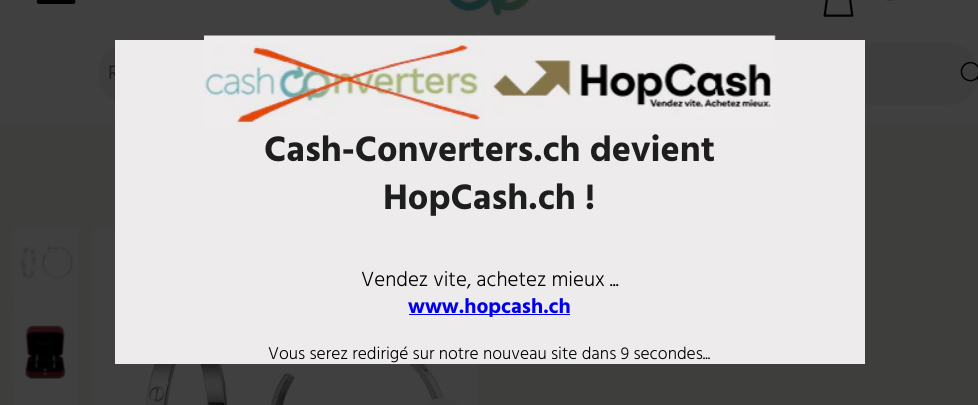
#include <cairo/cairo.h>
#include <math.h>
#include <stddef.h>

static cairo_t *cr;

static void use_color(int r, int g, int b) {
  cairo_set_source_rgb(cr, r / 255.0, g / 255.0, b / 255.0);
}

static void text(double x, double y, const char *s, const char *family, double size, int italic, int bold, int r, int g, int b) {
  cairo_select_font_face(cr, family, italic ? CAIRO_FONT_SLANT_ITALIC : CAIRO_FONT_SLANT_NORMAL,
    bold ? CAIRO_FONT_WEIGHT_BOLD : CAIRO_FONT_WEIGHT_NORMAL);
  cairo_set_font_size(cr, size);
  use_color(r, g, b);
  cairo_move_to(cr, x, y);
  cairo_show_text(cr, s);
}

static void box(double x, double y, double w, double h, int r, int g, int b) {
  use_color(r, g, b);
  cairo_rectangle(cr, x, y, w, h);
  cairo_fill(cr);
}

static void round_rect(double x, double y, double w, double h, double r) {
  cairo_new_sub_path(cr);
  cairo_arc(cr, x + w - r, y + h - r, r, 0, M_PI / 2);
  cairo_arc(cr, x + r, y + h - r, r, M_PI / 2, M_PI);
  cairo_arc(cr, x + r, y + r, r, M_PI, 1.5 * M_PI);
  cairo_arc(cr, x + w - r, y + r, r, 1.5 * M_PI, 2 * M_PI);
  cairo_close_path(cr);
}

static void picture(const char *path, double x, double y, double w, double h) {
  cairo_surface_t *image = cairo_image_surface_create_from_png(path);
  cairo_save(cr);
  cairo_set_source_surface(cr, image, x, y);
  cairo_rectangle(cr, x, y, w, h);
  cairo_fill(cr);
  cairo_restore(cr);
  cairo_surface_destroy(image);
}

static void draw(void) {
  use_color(62, 62, 61);
  cairo_paint(cr);
  box(0, 0, 978, 123, 64, 64, 64);
  picture("img_01.png", 36, 0, 40, 4);
  picture("img_02.png", 448, 0, 82, 17);
  picture("img_03.png", 823, 0, 31, 17);
  picture("img_04.png", 886, 0, 8, 1);
  use_color(61, 61, 61);
  round_rect(98, 43, 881, 62, 31);
  cairo_fill(cr);
  picture("img_05.png", 960, 61, 18, 21);
  box(13, 229, 65, 176, 64, 64, 64);
  picture("img_06.png", 12, 229, 62, 65);
  picture("img_07.png", 12, 319, 54, 65);
  picture("img_08.png", 92, 229, 385, 176);
  use_color(62, 62, 63);
  round_rect(418, 398, 47, 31, 23.5);
  cairo_fill(cr);
  text(108, 79, "R", "Hind", 20, 0, 0, 30, 30, 30);
  box(115, 40, 750, 324, 237, 235, 235);
  picture("img_09.png", 204, 35, 572, 91);
  text(264, 161, "Cash-Converters.ch devient", "Hind", 36.25, 0, 1, 30, 30, 30);
  text(383, 209, "HopCash.ch !", "Hind", 36.25, 0, 1, 30, 30, 30);
  text(361, 286, "Vendez vite, achetez mieux ...", "Hind Light", 21, 0, 0, 0, 0, 0);
  box(409, 314, 161, 1, 0, 0, 238);
  text(408, 313, "www.hopcash.ch", "Hind", 21, 0, 1, 0, 0, 238);
  text(268, 359, "Vous serez redirigé sur notre nouveau site dans 9 secondes...", "Hind Light", 17.5, 0, 0, 0, 0, 0);
}

int main(void) {
  cairo_surface_t *surface = cairo_image_surface_create(CAIRO_FORMAT_RGB24, 978, 405);
  cr = cairo_create(surface);
  cairo_font_options_t *options = cairo_font_options_create();
  cairo_font_options_set_hint_metrics(options, CAIRO_HINT_METRICS_OFF);
  cairo_font_options_set_hint_style(options, CAIRO_HINT_STYLE_NONE);
  cairo_set_font_options(cr, options);
  cairo_set_miter_limit(cr, 4);
  draw();
  cairo_surface_write_to_png(surface, "out.png");
  cairo_font_options_destroy(options);
  cairo_destroy(cr);
  cairo_surface_destroy(surface);
  return 0;
}
